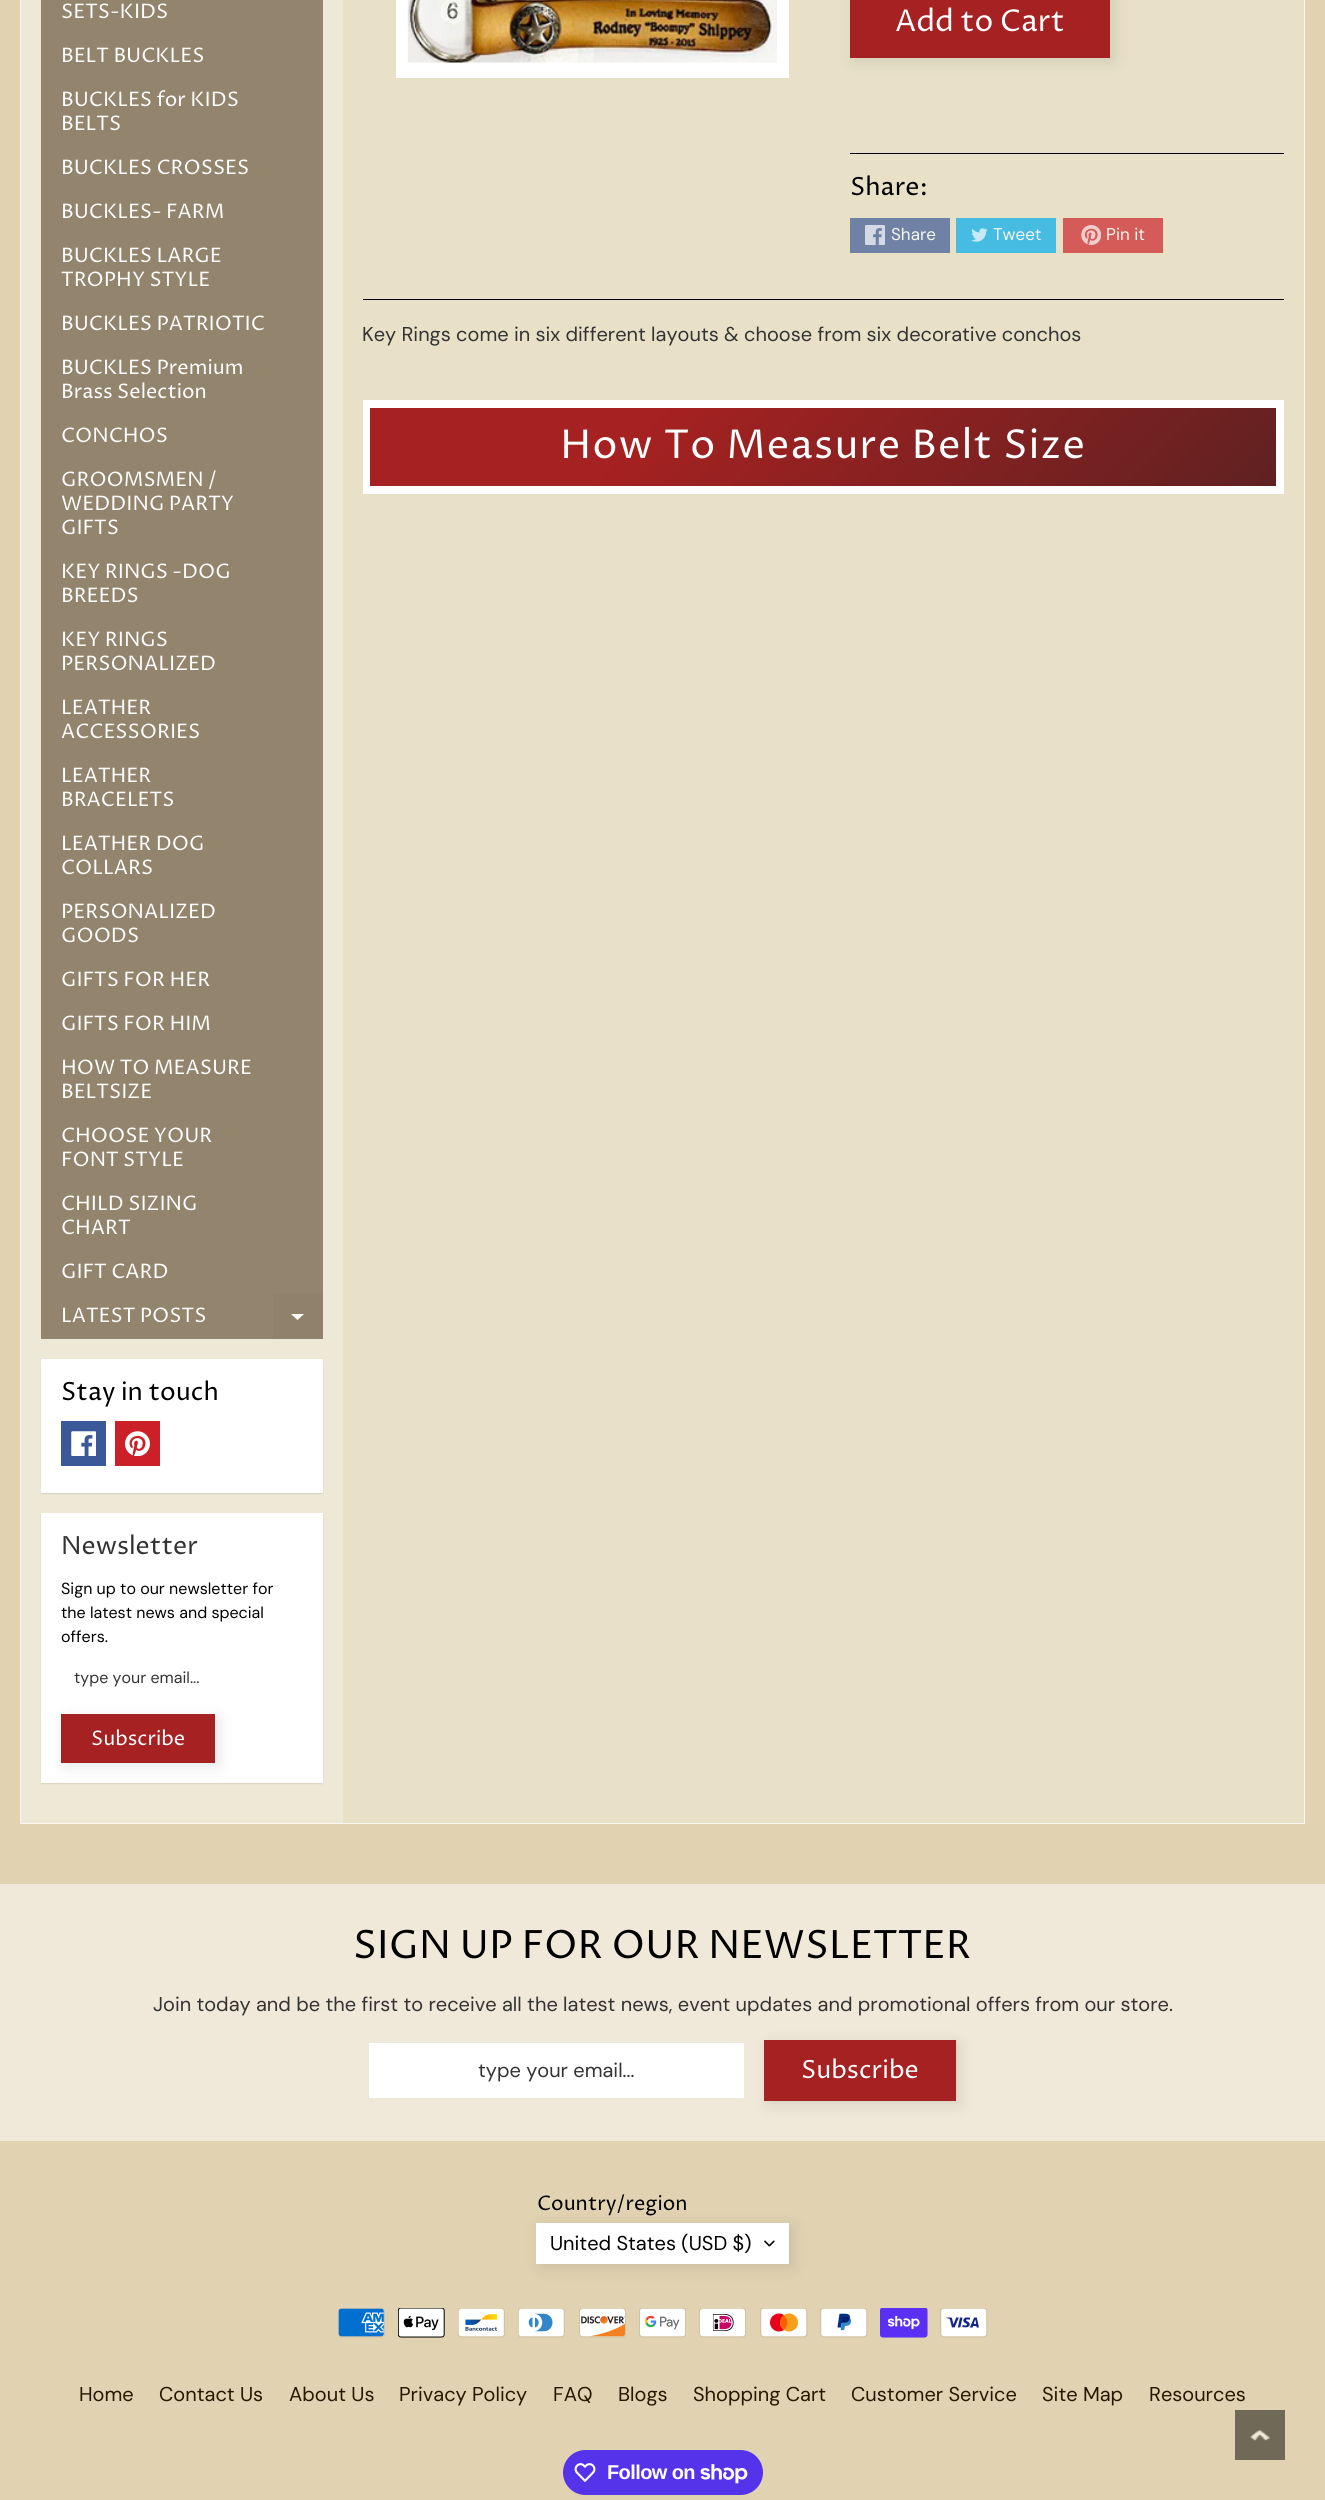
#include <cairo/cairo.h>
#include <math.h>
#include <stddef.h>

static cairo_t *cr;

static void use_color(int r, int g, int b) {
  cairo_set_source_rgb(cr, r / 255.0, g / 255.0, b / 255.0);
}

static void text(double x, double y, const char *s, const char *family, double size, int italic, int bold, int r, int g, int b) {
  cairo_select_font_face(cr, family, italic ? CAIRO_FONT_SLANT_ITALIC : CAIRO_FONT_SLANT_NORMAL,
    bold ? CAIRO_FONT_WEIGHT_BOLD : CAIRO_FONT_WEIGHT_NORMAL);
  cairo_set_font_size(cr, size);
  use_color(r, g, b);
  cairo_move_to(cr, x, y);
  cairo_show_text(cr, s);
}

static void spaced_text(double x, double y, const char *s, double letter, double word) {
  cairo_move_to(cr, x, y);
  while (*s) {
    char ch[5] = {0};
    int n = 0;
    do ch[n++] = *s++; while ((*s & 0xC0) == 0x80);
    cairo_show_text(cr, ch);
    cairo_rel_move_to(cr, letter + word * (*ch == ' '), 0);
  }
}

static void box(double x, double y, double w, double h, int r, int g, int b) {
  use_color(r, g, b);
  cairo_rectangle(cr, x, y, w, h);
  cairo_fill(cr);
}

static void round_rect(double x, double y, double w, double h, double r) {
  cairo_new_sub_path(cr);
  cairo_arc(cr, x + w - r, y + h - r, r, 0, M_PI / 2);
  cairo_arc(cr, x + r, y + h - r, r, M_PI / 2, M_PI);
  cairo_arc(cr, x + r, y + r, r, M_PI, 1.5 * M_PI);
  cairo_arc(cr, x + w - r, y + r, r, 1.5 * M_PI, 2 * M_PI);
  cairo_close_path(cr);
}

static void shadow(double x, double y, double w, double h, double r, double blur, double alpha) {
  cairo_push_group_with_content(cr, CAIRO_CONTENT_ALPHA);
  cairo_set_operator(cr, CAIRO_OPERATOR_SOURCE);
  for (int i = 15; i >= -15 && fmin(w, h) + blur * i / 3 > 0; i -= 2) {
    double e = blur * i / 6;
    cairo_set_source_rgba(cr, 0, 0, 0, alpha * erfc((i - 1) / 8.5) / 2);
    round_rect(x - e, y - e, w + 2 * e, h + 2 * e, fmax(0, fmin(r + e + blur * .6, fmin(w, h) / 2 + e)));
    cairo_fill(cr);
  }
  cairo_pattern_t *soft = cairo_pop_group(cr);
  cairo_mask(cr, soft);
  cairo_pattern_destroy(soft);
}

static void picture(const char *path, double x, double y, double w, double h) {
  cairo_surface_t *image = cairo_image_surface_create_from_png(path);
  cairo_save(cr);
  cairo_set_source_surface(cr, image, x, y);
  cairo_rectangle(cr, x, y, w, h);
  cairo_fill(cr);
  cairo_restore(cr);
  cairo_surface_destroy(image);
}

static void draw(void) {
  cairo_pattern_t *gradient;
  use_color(225, 210, 177);
  cairo_paint(cr);
  box(343, 0, 961, 1823, 232, 225, 200);
  cairo_rectangle(cr, 20.5, -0.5, 1284, 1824);
  use_color(248, 246, 239);
  cairo_set_line_width(cr, 1);
  cairo_stroke(cr);
  box(21, 0, 322, 1823, 238, 232, 214);
  box(41, 0, 282, 1294, 147, 132, 109);
  box(41, 1294, 232, 45, 147, 132, 109);
  box(273, 1294, 50, 45, 143, 129, 106);
  use_color(255, 255, 255);
  cairo_new_path(cr);
  cairo_move_to(cr, 291, 1314);
  cairo_line_to(cr, 304, 1314);
  cairo_line_to(cr, 297.5, 1320);
  cairo_close_path(cr);
  cairo_fill(cr);
  use_color(0, 0, 0);
  shadow(41, 1360, 282, 134, 0, 0.5, 0.1);
  box(41, 1359, 282, 134, 255, 255, 255);
  box(61, 1421, 45, 45, 59, 89, 152);
  picture("img_01.png", 71, 1431, 25, 25);
  box(115, 1421, 45, 45, 203, 32, 39);
  picture("img_02.png", 125, 1431, 25, 25);
  use_color(0, 0, 0);
  shadow(41, 1514, 282, 270, 0, 0.5, 0.1);
  box(41, 1513, 282, 270, 255, 255, 255);
  use_color(0, 0, 0);
  shadow(65, 1718, 154, 48, 0, 7.5, 0.1);
  box(61, 1714, 154, 49, 166, 33, 33);
  box(396, 0, 393, 78, 255, 255, 255);
  picture("img_03.png", 407, 0, 370, 63);
  use_color(0, 0, 0);
  shadow(854, -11, 260, 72, 0, 7.5, 0.1);
  box(850, 0, 260, 58, 166, 33, 33);
  box(850, 153, 434, 1, 0, 0, 0);
  box(850, 218, 100, 35, 111, 130, 166);
  picture("img_04.png", 865, 225, 20, 20);
  box(956, 218, 100, 35, 70, 188, 226);
  picture("img_05.png", 971, 228, 17, 14);
  box(1063, 218, 100, 35, 212, 91, 87);
  picture("img_06.png", 1081, 225, 20, 20);
  box(363, 299, 921, 1, 0, 0, 0);
  box(363, 400, 921, 94, 255, 255, 255);
  gradient = cairo_pattern_create_linear(577, 201, 1069, 693);
  cairo_pattern_add_color_stop_rgba(gradient, 0.3, 0.651, 0.129, 0.129, 1);
  cairo_pattern_add_color_stop_rgba(gradient, 1, 0.376, 0.129, 0.129, 1);
  cairo_set_source(cr, gradient);
  cairo_pattern_destroy(gradient);
  cairo_rectangle(cr, 370, 408, 906, 78);
  cairo_fill(cr);
  box(0, 1884, 1325, 257, 240, 232, 216);
  box(369, 2043, 375, 55, 255, 255, 255);
  use_color(0, 0, 0);
  shadow(768, 2044, 192, 61, 0, 7.5, 0.1);
  box(764, 2040, 192, 61, 166, 33, 33);
  use_color(0, 0, 0);
  shadow(540, 2226, 253, 42, 0, 7.5, 0.1);
  box(536, 2223, 253, 41, 255, 255, 255);
  picture("img_07.png", 764, 2240, 11, 7);
  picture("img_08.png", 338, 2308, 47, 30);
  picture("img_09.png", 398, 2308, 47, 30);
  picture("img_10.png", 458, 2308, 47, 30);
  picture("img_11.png", 518, 2308, 47, 30);
  picture("img_12.png", 579, 2308, 47, 30);
  picture("img_13.png", 639, 2308, 47, 30);
  picture("img_14.png", 699, 2308, 47, 30);
  picture("img_15.png", 760, 2308, 48, 30);
  picture("img_16.png", 820, 2308, 48, 30);
  picture("img_17.png", 880, 2308, 48, 30);
  picture("img_18.png", 940, 2308, 48, 30);
  picture("img_19.png", 1235, 2410, 50, 50);
  use_color(84, 51, 235);
  round_rect(563, 2450, 200, 45, 22.5);
  cairo_fill(cr);
  picture("img_20.png", 574, 2463, 22, 19);
  picture("img_21.png", 700, 2464, 48, 20);
  text(61, 18, "SETS-KIDS", "Proza Libre", 20, 0, 0, 255, 255, 255);
  text(61, 62, "BELT BUCKLES", "Proza Libre", 20, 0, 0, 255, 255, 255);
  text(61, 106, "BUCKLES for KIDS", "Proza Libre", 20, 0, 0, 255, 255, 255);
  text(61, 130, "BELTS", "Proza Libre", 20, 0, 0, 255, 255, 255);
  text(61, 174, "BUCKLES CROSSES", "Proza Libre", 20, 0, 0, 255, 255, 255);
  text(61, 218, "BUCKLES- FARM", "Proza Libre", 20, 0, 0, 255, 255, 255);
  text(61, 262, "BUCKLES LARGE", "Proza Libre", 20, 0, 0, 255, 255, 255);
  text(61, 286, "TROPHY STYLE", "Proza Libre", 20, 0, 0, 255, 255, 255);
  text(61, 330, "BUCKLES PATRIOTIC", "Proza Libre", 20, 0, 0, 255, 255, 255);
  text(61, 374, "BUCKLES Premium", "Proza Libre", 20, 0, 0, 255, 255, 255);
  text(61, 398, "Brass Selection", "Proza Libre", 20, 0, 0, 255, 255, 255);
  text(61, 442, "CONCHOS", "Proza Libre", 20, 0, 0, 255, 255, 255);
  text(61, 486, "GROOMSMEN /", "Proza Libre", 20, 0, 0, 255, 255, 255);
  text(61, 510, "WEDDING PARTY", "Proza Libre", 20, 0, 0, 255, 255, 255);
  text(61, 534, "GIFTS", "Proza Libre", 20, 0, 0, 255, 255, 255);
  text(61, 578, "KEY RINGS -DOG", "Proza Libre", 20, 0, 0, 255, 255, 255);
  text(61, 602, "BREEDS", "Proza Libre", 20, 0, 0, 255, 255, 255);
  text(61, 646, "KEY RINGS", "Proza Libre", 20, 0, 0, 255, 255, 255);
  text(61, 670, "PERSONALIZED", "Proza Libre", 20, 0, 0, 255, 255, 255);
  text(61, 714, "LEATHER", "Proza Libre", 20, 0, 0, 255, 255, 255);
  text(61, 738, "ACCESSORIES", "Proza Libre", 20, 0, 0, 255, 255, 255);
  text(61, 782, "LEATHER", "Proza Libre", 20, 0, 0, 255, 255, 255);
  text(61, 806, "BRACELETS", "Proza Libre", 20, 0, 0, 255, 255, 255);
  text(61, 850, "LEATHER DOG", "Proza Libre", 20, 0, 0, 255, 255, 255);
  text(61, 874, "COLLARS", "Proza Libre", 20, 0, 0, 255, 255, 255);
  text(61, 918, "PERSONALIZED", "Proza Libre", 20, 0, 0, 255, 255, 255);
  text(61, 942, "GOODS", "Proza Libre", 20, 0, 0, 255, 255, 255);
  text(61, 986, "GIFTS FOR HER", "Proza Libre", 20, 0, 0, 255, 255, 255);
  text(61, 1030, "GIFTS FOR HIM", "Proza Libre", 20, 0, 0, 255, 255, 255);
  text(61, 1074, "HOW TO MEASURE", "Proza Libre", 20, 0, 0, 255, 255, 255);
  text(61, 1098, "BELTSIZE", "Proza Libre", 20, 0, 0, 255, 255, 255);
  text(61, 1142, "CHOOSE YOUR", "Proza Libre", 20, 0, 0, 255, 255, 255);
  text(61, 1166, "FONT STYLE", "Proza Libre", 20, 0, 0, 255, 255, 255);
  text(61, 1210, "CHILD SIZING", "Proza Libre", 20, 0, 0, 255, 255, 255);
  text(61, 1234, "CHART", "Proza Libre", 20, 0, 0, 255, 255, 255);
  text(61, 1278, "GIFT CARD", "Proza Libre", 20, 0, 0, 255, 255, 255);
  text(61, 1322, "LATEST POSTS", "Proza Libre", 20, 0, 0, 255, 255, 255);
  text(61, 1400, "Stay in touch", "Proza Libre", 25, 0, 0, 0, 0, 0);
  text(61, 1554, "Newsletter", "Proza Libre", 25, 0, 0, 51, 51, 51);
  text(61, 1594, "Sign up to our newsletter for", "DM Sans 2", 16, 0, 0, 0, 0, 0);
  text(61, 1618, "the latest news and special", "DM Sans 2", 16, 0, 0, 0, 0, 0);
  text(61, 1642, "offers.", "DM Sans 2", 16, 0, 0, 0, 0, 0);
  text(74, 1683, "type your email...", "DM Sans 2", 16, 0, 0, 51, 51, 51);
  text(91, 1745, "Subscribe", "Proza Libre", 20, 0, 0, 255, 255, 255);
  text(895, 31, "Add to Cart", "Proza Libre", 30, 0, 0, 255, 255, 255);
  text(850, 195, "Share:", "Proza Libre", 25, 0, 0, 0, 0, 0);
  text(891, 240, "Share", "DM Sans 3", 17, 0, 0, 248, 246, 239);
  text(993, 240, "Tweet", "DM Sans 3", 17, 0, 0, 248, 246, 239);
  text(1106, 240, "Pin it", "DM Sans 3", 17, 0, 0, 248, 246, 239);
  text(362, 341, "Key Rings come in six different layouts & choose from six decorative conchos", "DM Sans", 20, 0, 0, 51, 51, 51);
  cairo_select_font_face(cr, "Proza Libre", CAIRO_FONT_SLANT_NORMAL, CAIRO_FONT_WEIGHT_NORMAL);
  cairo_set_font_size(cr, 39.75);
  use_color(255, 255, 255);
  spaced_text(560, 458, "How To Measure Belt Size", 1.25, 0);
  text(353, 1958, "SIGN UP FOR OUR NEWSLETTER", "Proza Libre", 39, 0, 0, 0, 0, 0);
  text(153, 2011, "Join today and be the first to receive all the latest news, event updates and promotional offers from our store.", "DM Sans", 20, 0, 0, 51, 51, 51);
  text(478, 2077, "type your email...", "DM Sans", 20, 0, 0, 51, 51, 51);
  text(801, 2078, "Subscribe", "Proza Libre", 25, 0, 0, 255, 255, 255);
  text(537, 2210, "Country/region", "Proza Libre", 20, 0, 0, 0, 0, 0);
  text(550, 2250, "United States (USD $)", "DM Sans", 20, 0, 0, 0, 0, 0);
  text(79, 2401, "Home", "DM Sans", 20, 0, 0, 37, 24, 0);
  text(159, 2401, "Contact Us", "DM Sans", 20, 0, 0, 37, 24, 0);
  text(289, 2401, "About Us", "DM Sans", 20, 0, 0, 37, 24, 0);
  text(399, 2401, "Privacy Policy", "DM Sans", 20, 0, 0, 37, 24, 0);
  text(553, 2401, "FAQ", "DM Sans", 20, 0, 0, 37, 24, 0);
  text(618, 2401, "Blogs", "DM Sans", 20, 0, 0, 37, 24, 0);
  text(693, 2401, "Shopping Cart", "DM Sans", 20, 0, 0, 37, 24, 0);
  text(851, 2401, "Customer Service", "DM Sans", 20, 0, 0, 37, 24, 0);
  text(1042, 2401, "Site Map", "DM Sans", 20, 0, 0, 37, 24, 0);
  text(1149, 2401, "Resources", "DM Sans", 20, 0, 0, 37, 24, 0);
  cairo_select_font_face(cr, "Liberation Sans", CAIRO_FONT_SLANT_NORMAL, CAIRO_FONT_WEIGHT_BOLD);
  use_color(255, 255, 255);
  spaced_text(607, 2479, "Follow on", -0.6, 0);
}

int main(void) {
  cairo_surface_t *surface = cairo_image_surface_create(CAIRO_FORMAT_RGB24, 1325, 2500);
  cr = cairo_create(surface);
  cairo_font_options_t *options = cairo_font_options_create();
  cairo_font_options_set_hint_metrics(options, CAIRO_HINT_METRICS_OFF);
  cairo_font_options_set_hint_style(options, CAIRO_HINT_STYLE_NONE);
  cairo_set_font_options(cr, options);
  cairo_set_miter_limit(cr, 4);
  draw();
  cairo_surface_write_to_png(surface, "out.png");
  cairo_font_options_destroy(options);
  cairo_destroy(cr);
  cairo_surface_destroy(surface);
  return 0;
}
